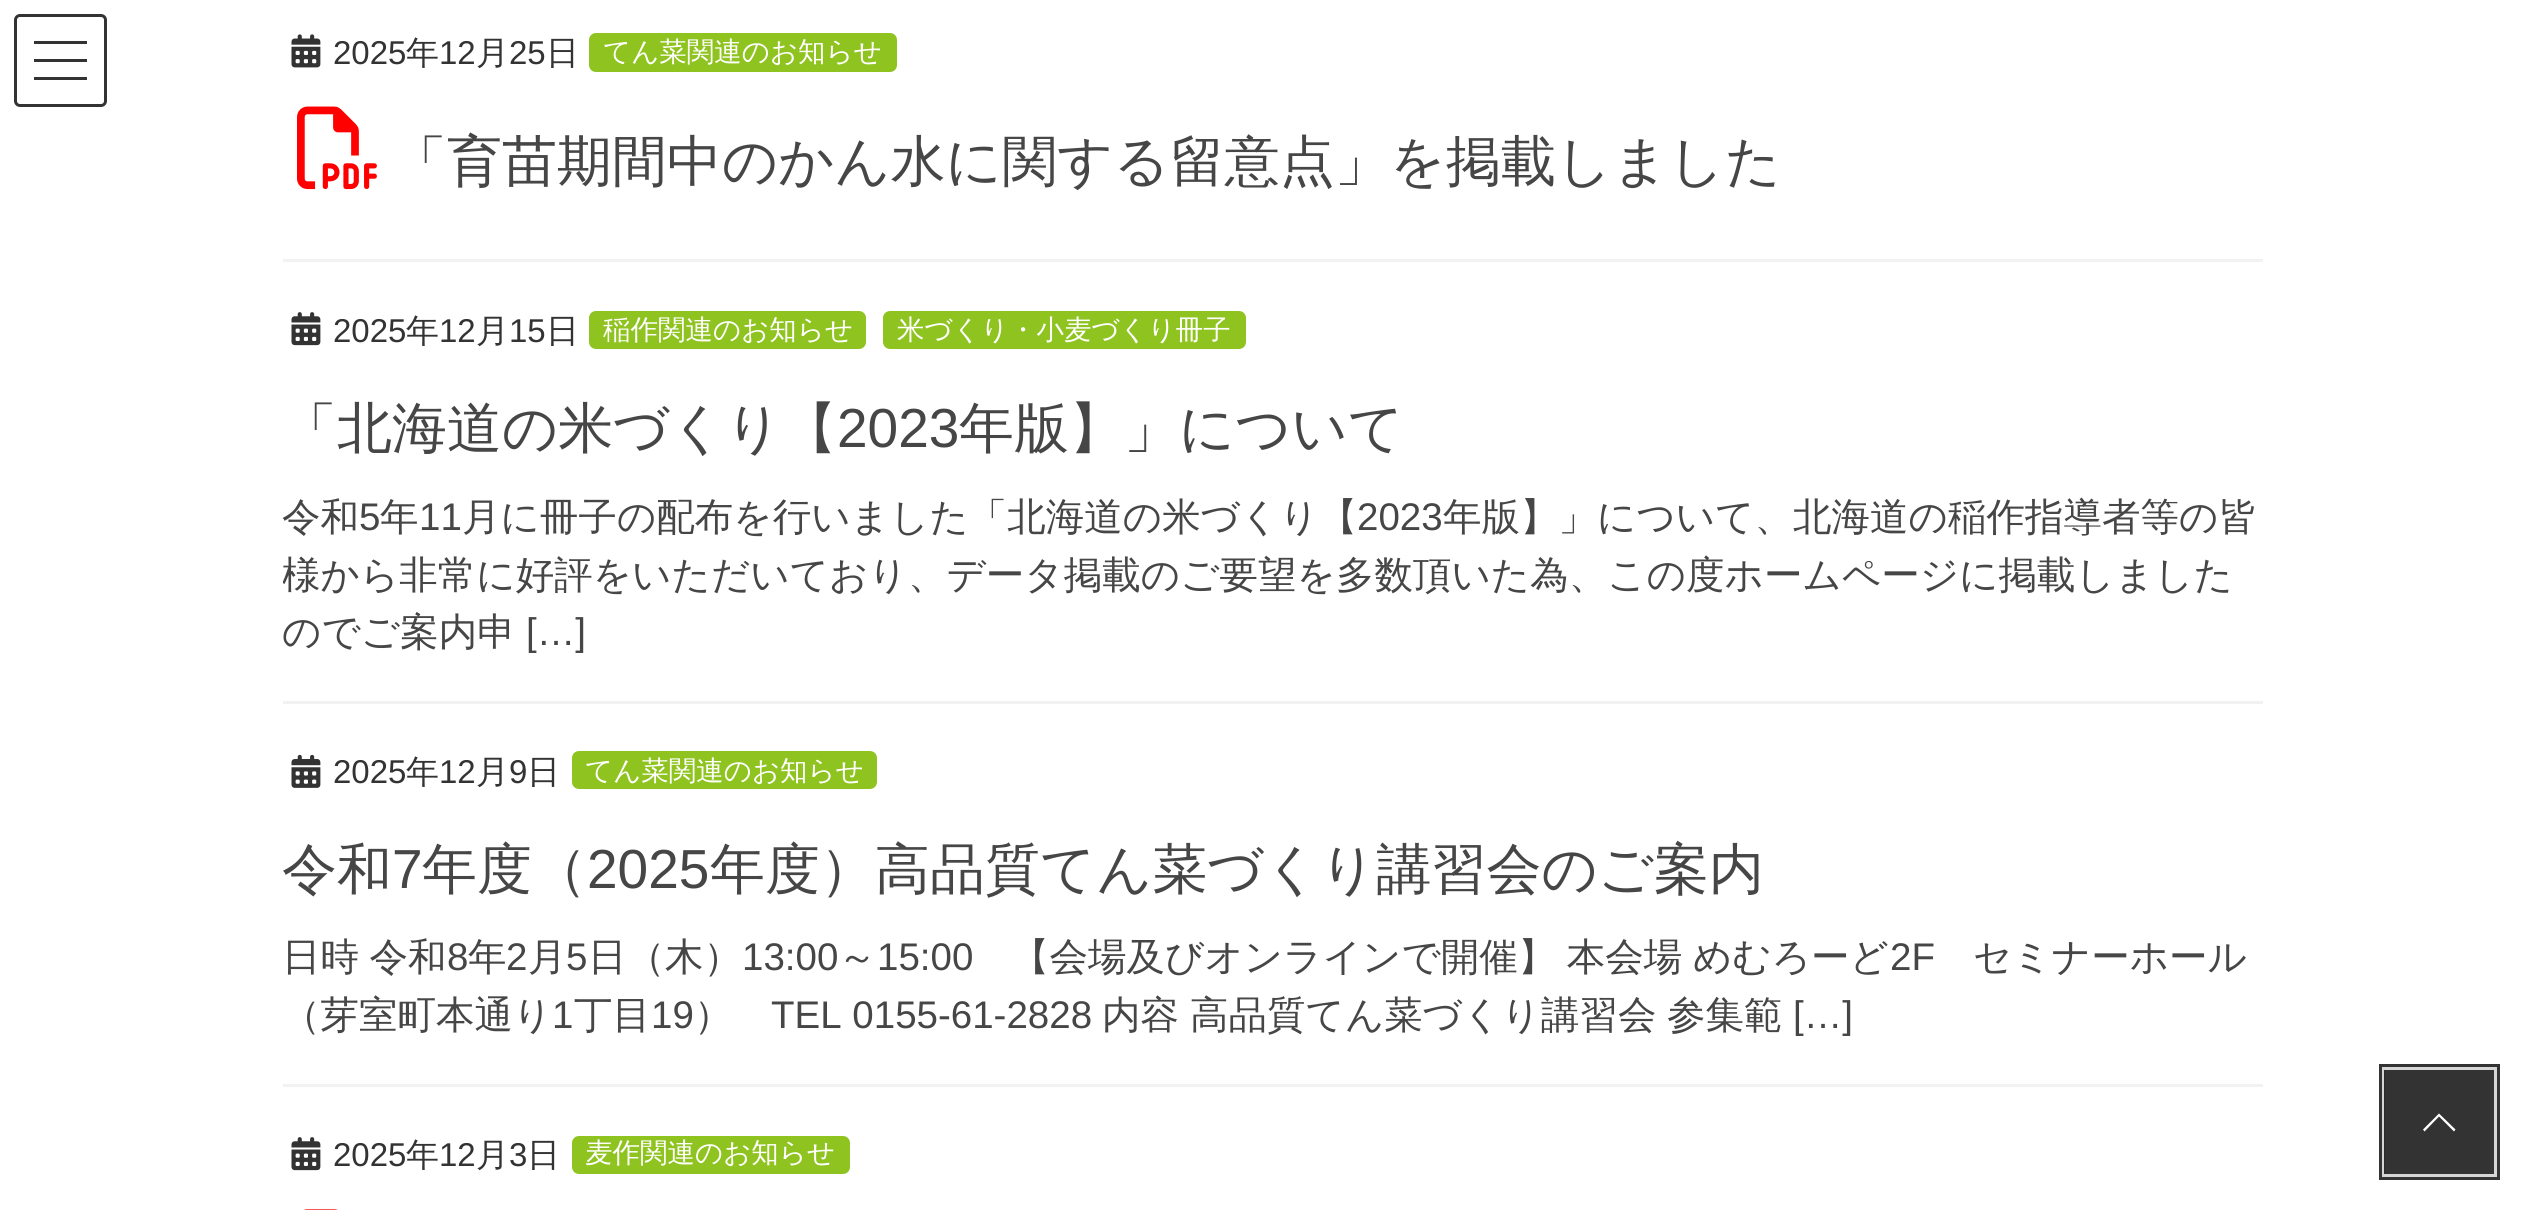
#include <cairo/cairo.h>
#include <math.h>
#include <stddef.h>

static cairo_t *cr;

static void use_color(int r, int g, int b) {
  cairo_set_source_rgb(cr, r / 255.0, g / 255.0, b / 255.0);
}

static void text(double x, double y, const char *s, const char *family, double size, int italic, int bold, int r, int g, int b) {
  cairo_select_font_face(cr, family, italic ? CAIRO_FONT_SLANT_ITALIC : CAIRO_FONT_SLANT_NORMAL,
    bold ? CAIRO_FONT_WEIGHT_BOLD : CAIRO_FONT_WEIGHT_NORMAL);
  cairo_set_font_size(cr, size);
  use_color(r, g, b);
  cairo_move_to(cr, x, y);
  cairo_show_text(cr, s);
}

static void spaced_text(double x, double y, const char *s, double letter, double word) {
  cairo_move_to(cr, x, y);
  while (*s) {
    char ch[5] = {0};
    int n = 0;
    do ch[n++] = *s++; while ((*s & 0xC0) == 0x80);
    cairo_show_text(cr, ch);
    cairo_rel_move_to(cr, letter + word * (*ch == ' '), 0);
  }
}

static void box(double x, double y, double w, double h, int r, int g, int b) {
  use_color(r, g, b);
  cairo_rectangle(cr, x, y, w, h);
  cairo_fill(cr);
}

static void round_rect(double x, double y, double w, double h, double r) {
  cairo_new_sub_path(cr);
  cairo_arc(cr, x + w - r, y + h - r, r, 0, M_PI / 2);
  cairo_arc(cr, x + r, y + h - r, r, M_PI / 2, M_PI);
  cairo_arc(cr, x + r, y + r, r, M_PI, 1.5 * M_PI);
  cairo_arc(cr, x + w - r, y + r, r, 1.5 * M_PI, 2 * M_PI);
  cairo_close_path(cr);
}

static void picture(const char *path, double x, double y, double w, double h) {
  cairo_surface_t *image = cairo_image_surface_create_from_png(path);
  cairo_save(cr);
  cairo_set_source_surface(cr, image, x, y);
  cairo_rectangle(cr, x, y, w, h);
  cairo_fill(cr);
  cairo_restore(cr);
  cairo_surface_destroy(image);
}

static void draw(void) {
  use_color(255, 255, 255);
  cairo_paint(cr);
  box(34, 41, 53, 3, 51, 51, 51);
  box(34, 59, 53, 3, 51, 51, 51);
  box(34, 77, 53, 3, 51, 51, 51);
  round_rect(15.5, 15.5, 90, 90, 4.5);
  cairo_set_line_width(cr, 3);
  cairo_stroke(cr);
  box(283, 259, 1980, 3, 242, 242, 242);
  picture("img_01.png", 291, 34, 30, 34);
  use_color(143, 195, 31);
  round_rect(589, 33, 308, 39, 7);
  cairo_fill(cr);
  picture("img_02.png", 297, 106, 80, 84);
  box(283, 701, 1980, 3, 242, 242, 242);
  picture("img_03.png", 291, 312, 30, 34);
  use_color(143, 195, 31);
  round_rect(589, 311, 277, 38, 7);
  cairo_fill(cr);
  round_rect(883, 311, 363, 38, 7);
  cairo_fill(cr);
  box(283, 1084, 1980, 3, 242, 242, 242);
  picture("img_04.png", 291, 754, 30, 34);
  use_color(143, 195, 31);
  round_rect(572, 751, 305, 38, 7);
  cairo_fill(cr);
  picture("img_03.png", 291, 1137, 30, 34);
  round_rect(572, 1136, 278, 38, 7);
  cairo_fill(cr);
  picture("img_05.png", 304, 1209, 34, 1);
  cairo_rectangle(cr, 2382, 1067, 115, 110);
  use_color(51, 51, 51);
  cairo_set_line_width(cr, 6);
  cairo_stroke(cr);
  cairo_rectangle(cr, 2383.5, 1068.5, 112, 107);
  use_color(214, 214, 214);
  cairo_set_line_width(cr, 3);
  cairo_stroke(cr);
  cairo_set_source_rgba(cr, 0, 0, 0, 0.8);
  cairo_rectangle(cr, 2384, 1070, 110, 104);
  cairo_fill(cr);
  use_color(255, 255, 255);
  cairo_new_path(cr);
  cairo_move_to(cr, 2455.5, 1129.5);
  cairo_line_to(cr, 2454, 1131.5);
  cairo_line_to(cr, 2439, 1116.5);
  cairo_line_to(cr, 2424.5, 1131.5);
  cairo_line_to(cr, 2423, 1129.5);
  cairo_line_to(cr, 2439, 1113.5);
  cairo_close_path(cr);
  cairo_fill(cr);
  text(333, 64, "2025", "Liberation Sans", 33, 0, 0, 51, 51, 51);
  text(406, 64, "年", "WenQuanYi Zen Hei Medium", 33, 0, 0, 51, 51, 51);
  text(439, 64, "12", "Liberation Sans", 33, 0, 0, 51, 51, 51);
  text(476, 64, "月", "WenQuanYi Zen Hei Medium", 33, 0, 0, 51, 51, 51);
  text(509, 64, "25", "Liberation Sans", 33, 0, 0, 51, 51, 51);
  text(546, 64, "日", "WenQuanYi Zen Hei Medium", 33, 0, 0, 51, 51, 51);
  text(603, 61, "てん菜関連のお知らせ", "WenQuanYi Zen Hei Medium", 27.5, 0, 0, 255, 255, 255);
  text(392, 180, "「育苗期間中のかん水に関する留意点」を掲載しました", "WenQuanYi Zen Hei Medium", 55, 0, 0, 70, 70, 70);
  text(333, 342, "2025", "Liberation Sans", 33, 0, 0, 51, 51, 51);
  text(406, 342, "年", "WenQuanYi Zen Hei Medium", 33, 0, 0, 51, 51, 51);
  text(439, 342, "12", "Liberation Sans", 33, 0, 0, 51, 51, 51);
  text(476, 342, "月", "WenQuanYi Zen Hei Medium", 33, 0, 0, 51, 51, 51);
  text(509, 342, "15", "Liberation Sans", 33, 0, 0, 51, 51, 51);
  text(546, 342, "日", "WenQuanYi Zen Hei Medium", 33, 0, 0, 51, 51, 51);
  text(603, 339, "稲作関連のお知らせ", "WenQuanYi Zen Hei Medium", 27.5, 0, 0, 255, 255, 255);
  text(897, 339, "米づくり・小麦づくり冊子", "WenQuanYi Zen Hei Medium", 27.5, 0, 0, 255, 255, 255);
  text(282, 447, "「北海道の米づくり【", "WenQuanYi Zen Hei Medium", 55, 0, 0, 70, 70, 70);
  text(837, 447, "2023", "Liberation Sans", 55, 0, 0, 70, 70, 70);
  text(959, 447, "年版】」について", "WenQuanYi Zen Hei Medium", 55, 0, 0, 70, 70, 70);
  text(282, 530, "令和", "WenQuanYi Zen Hei Medium", 38.5, 0, 0, 70, 70, 70);
  text(359, 530, "5", "Liberation Sans", 38.5, 0, 0, 70, 70, 70);
  text(380, 530, "年", "WenQuanYi Zen Hei Medium", 38.5, 0, 0, 70, 70, 70);
  text(419, 530, "11", "Liberation Sans", 38.5, 0, 0, 70, 70, 70);
  text(462, 530, "月に冊子の配布を行いました「北海道の米づくり【", "WenQuanYi Zen Hei Medium", 38.5, 0, 0, 70, 70, 70);
  text(1357, 530, "2023", "Liberation Sans", 38.5, 0, 0, 70, 70, 70);
  text(1443, 530, "年版】」について、北海道の稲作指導者等の皆", "WenQuanYi Zen Hei Medium", 38.5, 0, 0, 70, 70, 70);
  cairo_save(cr);
  cairo_rectangle(cr, 283, 490, 1980, 173);
  cairo_clip(cr);
  text(282, 588, "様から非常に好評をいただいており、データ掲載のご要望を多数頂いた為、この度ホームページに掲載しました", "WenQuanYi Zen Hei Medium", 38.5, 0, 0, 70, 70, 70);
  cairo_restore(cr);
  text(282, 645, "のでご案内申", "WenQuanYi Zen Hei Medium", 38.5, 0, 0, 70, 70, 70);
  text(526, 645, "[…]", "Liberation Sans", 38.5, 0, 0, 70, 70, 70);
  text(333, 783, "2025", "Liberation Sans", 33, 0, 0, 51, 51, 51);
  text(406, 783, "年", "WenQuanYi Zen Hei Medium", 33, 0, 0, 51, 51, 51);
  text(439, 783, "12", "Liberation Sans", 33, 0, 0, 51, 51, 51);
  text(476, 783, "月", "WenQuanYi Zen Hei Medium", 33, 0, 0, 51, 51, 51);
  text(509, 783, "9", "Liberation Sans", 33, 0, 0, 51, 51, 51);
  text(527, 783, "日", "WenQuanYi Zen Hei Medium", 33, 0, 0, 51, 51, 51);
  text(585, 780, "てん菜関連のお知らせ", "WenQuanYi Zen Hei Medium", 27.5, 0, 0, 255, 255, 255);
  text(282, 888, "令和", "WenQuanYi Zen Hei Medium", 55, 0, 0, 70, 70, 70);
  text(392, 888, "7", "Liberation Sans", 55, 0, 0, 70, 70, 70);
  text(422, 888, "年度（", "WenQuanYi Zen Hei Medium", 55, 0, 0, 70, 70, 70);
  text(587, 888, "2025", "Liberation Sans", 55, 0, 0, 70, 70, 70);
  text(710, 888, "年度）高品質てん菜づくり講習会のご案内", "WenQuanYi Zen Hei Medium", 55, 0, 0, 70, 70, 70);
  cairo_set_font_size(cr, 38.5);
  spaced_text(282, 970, "日時 令和", 0, -1);
  text(447, 970, "8", "Liberation Sans", 38.5, 0, 0, 70, 70, 70);
  text(468, 970, "年", "WenQuanYi Zen Hei Medium", 38.5, 0, 0, 70, 70, 70);
  text(506, 970, "2", "Liberation Sans", 38.5, 0, 0, 70, 70, 70);
  text(528, 970, "月", "WenQuanYi Zen Hei Medium", 38.5, 0, 0, 70, 70, 70);
  text(566, 970, "5", "Liberation Sans", 38.5, 0, 0, 70, 70, 70);
  text(588, 970, "日（木）", "WenQuanYi Zen Hei Medium", 38.5, 0, 0, 70, 70, 70);
  text(742, 970, "13:00", "Liberation Sans", 38.5, 0, 0, 70, 70, 70);
  text(838, 970, "～", "WenQuanYi Zen Hei Medium", 38.5, 0, 0, 70, 70, 70);
  text(877, 970, "15:00", "Liberation Sans", 38.5, 0, 0, 70, 70, 70);
  cairo_select_font_face(cr, "WenQuanYi Zen Hei Medium", CAIRO_FONT_SLANT_NORMAL, CAIRO_FONT_WEIGHT_NORMAL);
  spaced_text(1011, 970, "【会場及びオンラインで開催】 本会場 めむろーど", 0, -1);
  text(1890, 970, "2F", "Liberation Sans", 38.5, 0, 0, 70, 70, 70);
  text(1973, 970, "セミナーホール", "WenQuanYi Zen Hei Medium", 38.5, 0, 0, 70, 70, 70);
  text(282, 1028, "（芽室町本通り", "WenQuanYi Zen Hei Medium", 38.5, 0, 0, 70, 70, 70);
  text(552, 1028, "1", "Liberation Sans", 38.5, 0, 0, 70, 70, 70);
  text(574, 1028, "丁目", "WenQuanYi Zen Hei Medium", 38.5, 0, 0, 70, 70, 70);
  text(651, 1028, "19", "Liberation Sans", 38.5, 0, 0, 70, 70, 70);
  text(694, 1028, "）", "WenQuanYi Zen Hei Medium", 38.5, 0, 0, 70, 70, 70);
  text(771, 1028, "TEL 0155-61-2828", "Liberation Sans", 38.5, 0, 0, 70, 70, 70);
  text(1102, 1028, "内容", "WenQuanYi Zen Hei Medium", 38.5, 0, 0, 70, 70, 70);
  text(1190, 1028, "高品質てん菜づくり講習会", "WenQuanYi Zen Hei Medium", 38.5, 0, 0, 70, 70, 70);
  text(1667, 1028, "参集範", "WenQuanYi Zen Hei Medium", 38.5, 0, 0, 70, 70, 70);
  text(1793, 1028, "[…]", "Liberation Sans", 38.5, 0, 0, 70, 70, 70);
  text(333, 1166, "2025", "Liberation Sans", 33, 0, 0, 51, 51, 51);
  text(406, 1166, "年", "WenQuanYi Zen Hei Medium", 33, 0, 0, 51, 51, 51);
  text(439, 1166, "12", "Liberation Sans", 33, 0, 0, 51, 51, 51);
  text(476, 1166, "月", "WenQuanYi Zen Hei Medium", 33, 0, 0, 51, 51, 51);
  text(509, 1166, "3", "Liberation Sans", 33, 0, 0, 51, 51, 51);
  text(527, 1166, "日", "WenQuanYi Zen Hei Medium", 33, 0, 0, 51, 51, 51);
  text(585, 1162, "麦作関連のお知らせ", "WenQuanYi Zen Hei Medium", 27.5, 0, 0, 255, 255, 255);
}

int main(void) {
  cairo_surface_t *surface = cairo_image_surface_create(CAIRO_FORMAT_RGB24, 2543, 1210);
  cr = cairo_create(surface);
  cairo_font_options_t *options = cairo_font_options_create();
  cairo_font_options_set_hint_metrics(options, CAIRO_HINT_METRICS_OFF);
  cairo_font_options_set_hint_style(options, CAIRO_HINT_STYLE_NONE);
  cairo_set_font_options(cr, options);
  cairo_set_miter_limit(cr, 4);
  draw();
  cairo_surface_write_to_png(surface, "out.png");
  cairo_font_options_destroy(options);
  cairo_destroy(cr);
  cairo_surface_destroy(surface);
  return 0;
}
